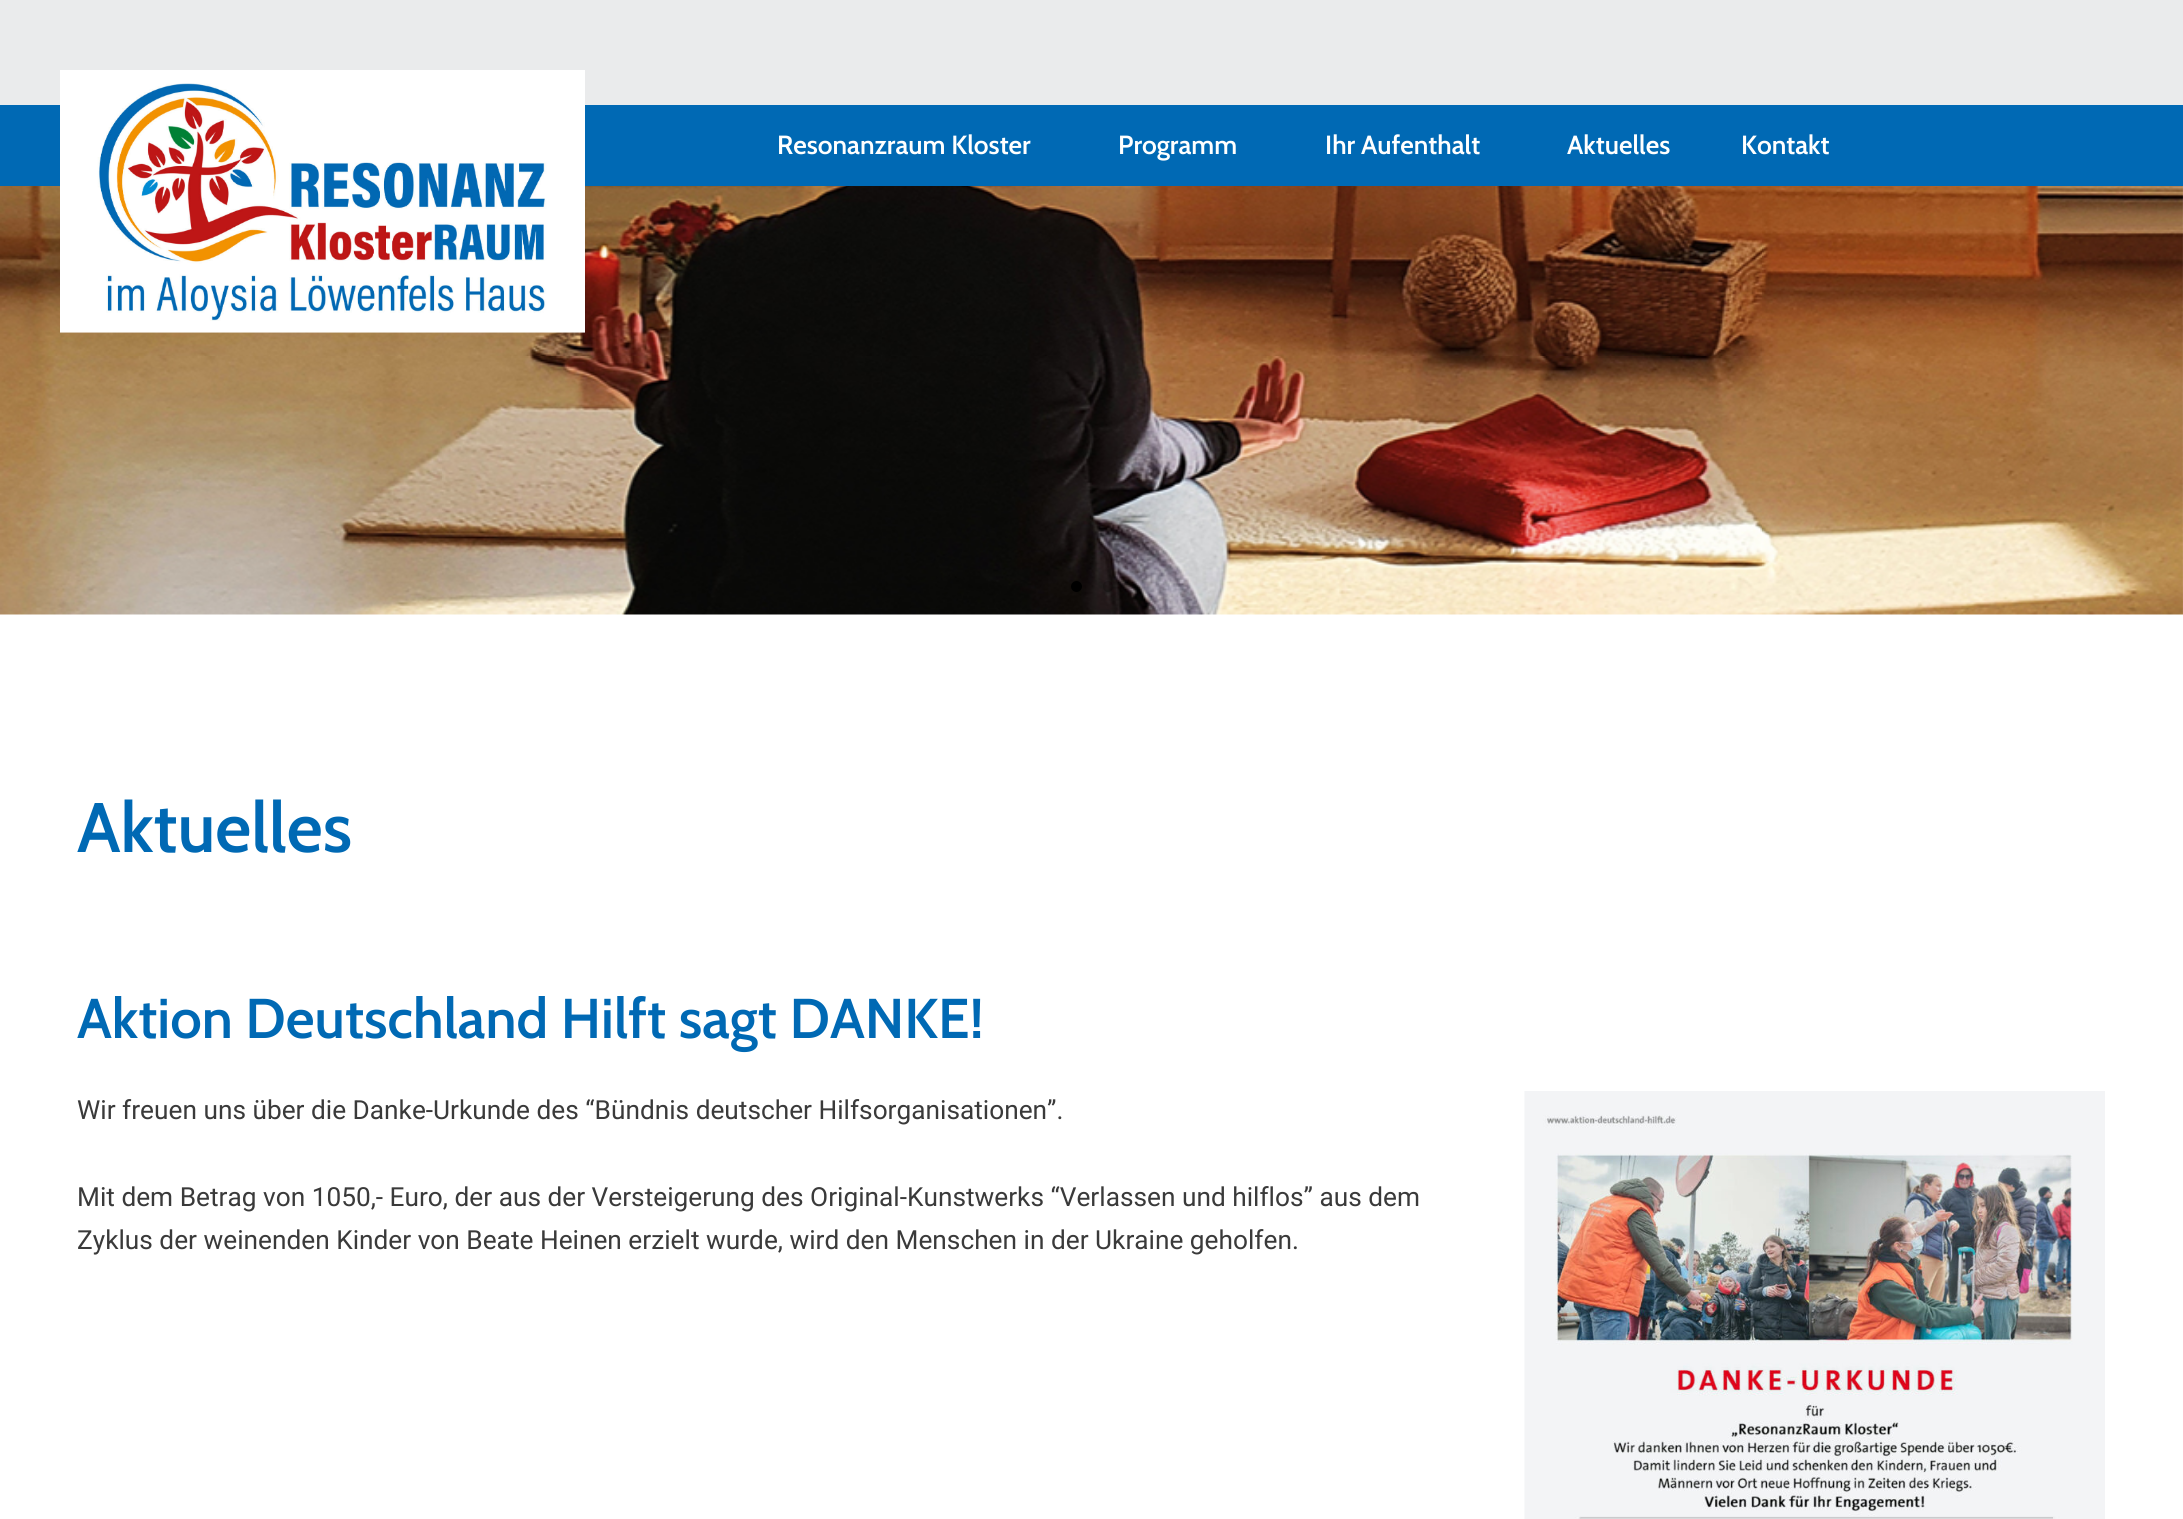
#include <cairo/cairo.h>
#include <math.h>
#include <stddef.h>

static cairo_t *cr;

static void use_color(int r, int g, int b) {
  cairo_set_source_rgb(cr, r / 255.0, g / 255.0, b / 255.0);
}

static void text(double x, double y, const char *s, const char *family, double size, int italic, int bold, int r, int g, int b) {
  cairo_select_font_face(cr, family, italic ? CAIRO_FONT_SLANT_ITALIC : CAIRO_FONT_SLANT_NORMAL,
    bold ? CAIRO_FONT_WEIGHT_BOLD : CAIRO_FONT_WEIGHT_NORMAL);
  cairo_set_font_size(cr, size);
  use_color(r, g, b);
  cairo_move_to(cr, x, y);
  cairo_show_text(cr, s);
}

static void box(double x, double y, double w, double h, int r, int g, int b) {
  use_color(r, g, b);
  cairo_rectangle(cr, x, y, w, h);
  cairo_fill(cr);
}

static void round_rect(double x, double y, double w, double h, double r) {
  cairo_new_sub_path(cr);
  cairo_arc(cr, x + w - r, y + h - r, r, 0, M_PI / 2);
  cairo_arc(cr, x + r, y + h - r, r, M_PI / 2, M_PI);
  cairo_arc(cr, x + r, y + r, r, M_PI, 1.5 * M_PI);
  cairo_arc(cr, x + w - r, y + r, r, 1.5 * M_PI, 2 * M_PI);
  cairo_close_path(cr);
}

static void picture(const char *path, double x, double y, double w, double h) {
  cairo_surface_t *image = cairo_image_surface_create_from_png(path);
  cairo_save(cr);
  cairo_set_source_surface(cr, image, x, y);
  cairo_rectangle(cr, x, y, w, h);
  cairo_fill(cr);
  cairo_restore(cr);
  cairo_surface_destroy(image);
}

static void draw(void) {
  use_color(255, 255, 255);
  cairo_paint(cr);
  box(0, 0, 2183, 105, 234, 235, 236);
  box(0, 105, 2183, 81, 0, 105, 180);
  picture("img_02.png", 0, 186, 2183, 429);
  picture("img_01.png", 60, 70, 525, 263);
  use_color(0, 0, 0);
  cairo_arc(cr, 1076.5, 586.5, 5.5, 0, 2 * M_PI);
  cairo_fill(cr);
  cairo_set_source_rgba(cr, 0, 0, 0, 0.2);
  round_rect(1103, 581, 10, 11, 5);
  cairo_fill(cr);
  picture("img_03.png", 1524, 1091, 581, 428);
  text(777, 154, "Resonanzraum Kloster", "Cabin SemiBold", 26.25, 0, 0, 255, 255, 255);
  text(1118, 154, "Programm", "Cabin SemiBold", 26.25, 0, 0, 255, 255, 255);
  text(1325, 154, "Ihr Aufenthalt", "Cabin SemiBold", 26.25, 0, 0, 255, 255, 255);
  text(1567, 154, "Aktuelles", "Cabin SemiBold", 26.25, 0, 0, 255, 255, 255);
  text(1741, 154, "Kontakt", "Cabin SemiBold", 26.25, 0, 0, 255, 255, 255);
  text(77, 852, "Aktuelles", "Cabin SemiBold", 70, 0, 0, 0, 105, 180);
  text(77, 1038, "Aktion Deutschland Hilft sagt DANKE!", "Cabin SemiBold", 56, 0, 0, 0, 105, 180);
  text(77, 1119, "Wir freuen uns über die Danke-Urkunde des “Bündnis deutscher Hilfsorganisationen”.", "Roboto", 26.25, 0, 0, 58, 58, 58);
  text(77, 1206, "Mit dem Betrag von 1050,- Euro, der aus der Versteigerung des Original-Kunstwerks “Verlassen und hilflos” aus dem", "Roboto", 26.25, 0, 0, 58, 58, 58);
  text(77, 1249, "Zyklus der weinenden Kinder von Beate Heinen erzielt wurde, wird den Menschen in der Ukraine geholfen.", "Roboto", 26.25, 0, 0, 58, 58, 58);
}

int main(void) {
  cairo_surface_t *surface = cairo_image_surface_create(CAIRO_FORMAT_RGB24, 2183, 1519);
  cr = cairo_create(surface);
  cairo_font_options_t *options = cairo_font_options_create();
  cairo_font_options_set_hint_metrics(options, CAIRO_HINT_METRICS_OFF);
  cairo_font_options_set_hint_style(options, CAIRO_HINT_STYLE_NONE);
  cairo_set_font_options(cr, options);
  cairo_set_miter_limit(cr, 4);
  draw();
  cairo_surface_write_to_png(surface, "out.png");
  cairo_font_options_destroy(options);
  cairo_destroy(cr);
  cairo_surface_destroy(surface);
  return 0;
}
